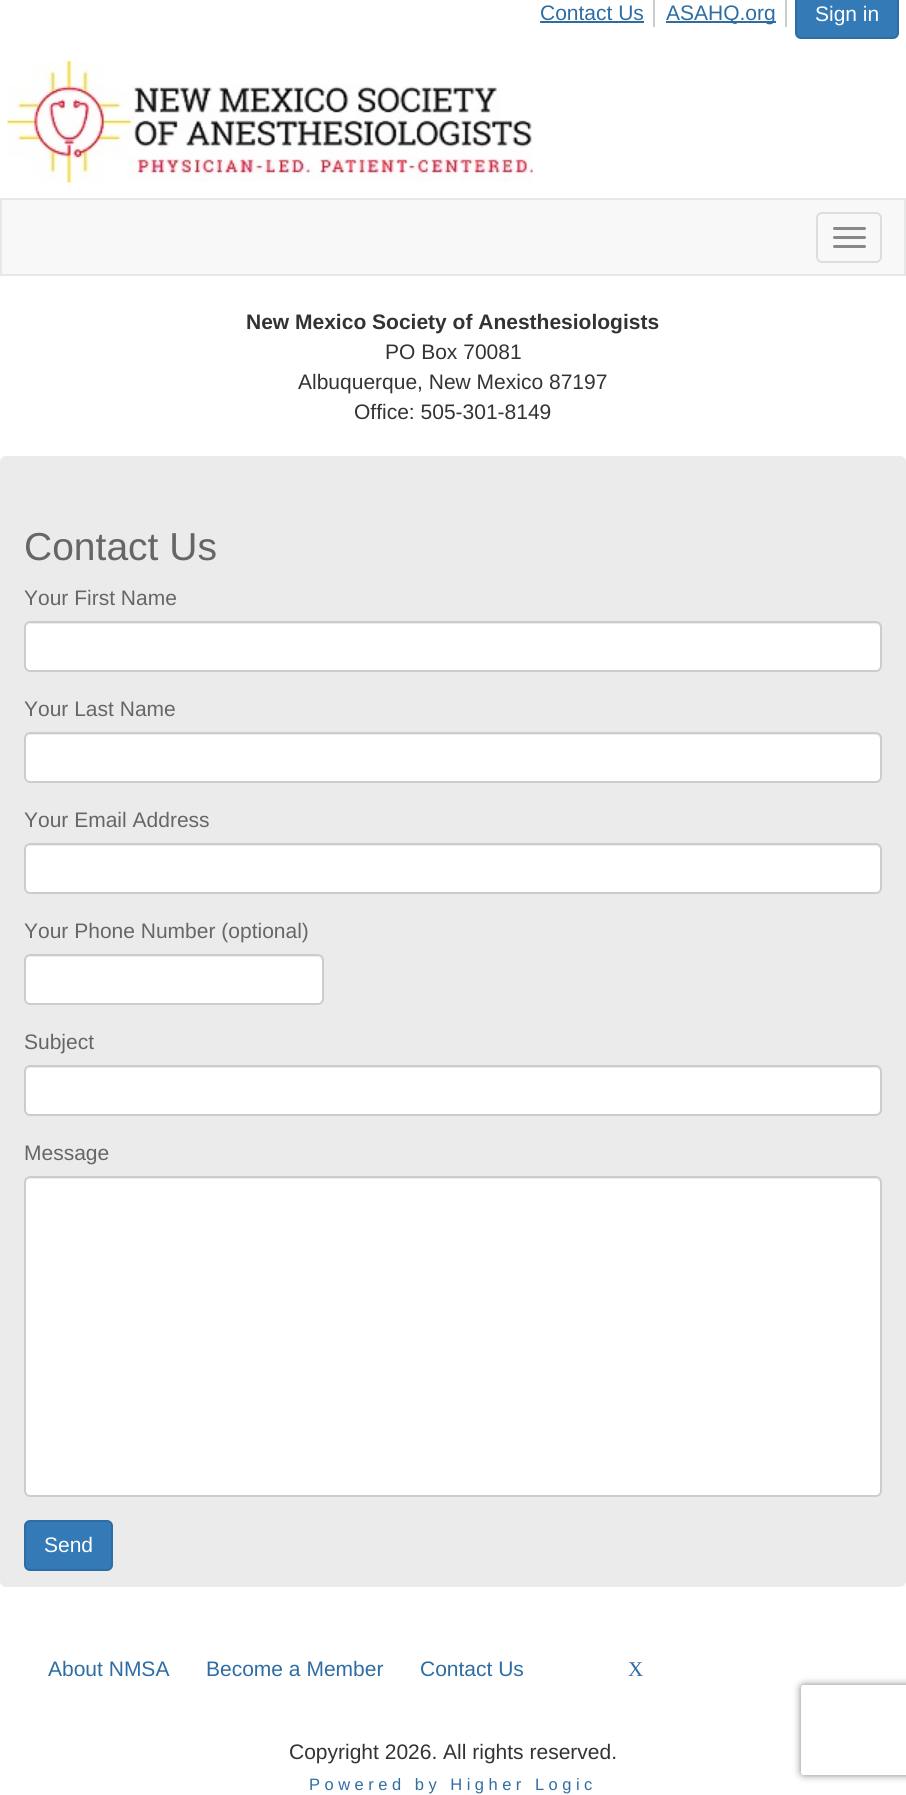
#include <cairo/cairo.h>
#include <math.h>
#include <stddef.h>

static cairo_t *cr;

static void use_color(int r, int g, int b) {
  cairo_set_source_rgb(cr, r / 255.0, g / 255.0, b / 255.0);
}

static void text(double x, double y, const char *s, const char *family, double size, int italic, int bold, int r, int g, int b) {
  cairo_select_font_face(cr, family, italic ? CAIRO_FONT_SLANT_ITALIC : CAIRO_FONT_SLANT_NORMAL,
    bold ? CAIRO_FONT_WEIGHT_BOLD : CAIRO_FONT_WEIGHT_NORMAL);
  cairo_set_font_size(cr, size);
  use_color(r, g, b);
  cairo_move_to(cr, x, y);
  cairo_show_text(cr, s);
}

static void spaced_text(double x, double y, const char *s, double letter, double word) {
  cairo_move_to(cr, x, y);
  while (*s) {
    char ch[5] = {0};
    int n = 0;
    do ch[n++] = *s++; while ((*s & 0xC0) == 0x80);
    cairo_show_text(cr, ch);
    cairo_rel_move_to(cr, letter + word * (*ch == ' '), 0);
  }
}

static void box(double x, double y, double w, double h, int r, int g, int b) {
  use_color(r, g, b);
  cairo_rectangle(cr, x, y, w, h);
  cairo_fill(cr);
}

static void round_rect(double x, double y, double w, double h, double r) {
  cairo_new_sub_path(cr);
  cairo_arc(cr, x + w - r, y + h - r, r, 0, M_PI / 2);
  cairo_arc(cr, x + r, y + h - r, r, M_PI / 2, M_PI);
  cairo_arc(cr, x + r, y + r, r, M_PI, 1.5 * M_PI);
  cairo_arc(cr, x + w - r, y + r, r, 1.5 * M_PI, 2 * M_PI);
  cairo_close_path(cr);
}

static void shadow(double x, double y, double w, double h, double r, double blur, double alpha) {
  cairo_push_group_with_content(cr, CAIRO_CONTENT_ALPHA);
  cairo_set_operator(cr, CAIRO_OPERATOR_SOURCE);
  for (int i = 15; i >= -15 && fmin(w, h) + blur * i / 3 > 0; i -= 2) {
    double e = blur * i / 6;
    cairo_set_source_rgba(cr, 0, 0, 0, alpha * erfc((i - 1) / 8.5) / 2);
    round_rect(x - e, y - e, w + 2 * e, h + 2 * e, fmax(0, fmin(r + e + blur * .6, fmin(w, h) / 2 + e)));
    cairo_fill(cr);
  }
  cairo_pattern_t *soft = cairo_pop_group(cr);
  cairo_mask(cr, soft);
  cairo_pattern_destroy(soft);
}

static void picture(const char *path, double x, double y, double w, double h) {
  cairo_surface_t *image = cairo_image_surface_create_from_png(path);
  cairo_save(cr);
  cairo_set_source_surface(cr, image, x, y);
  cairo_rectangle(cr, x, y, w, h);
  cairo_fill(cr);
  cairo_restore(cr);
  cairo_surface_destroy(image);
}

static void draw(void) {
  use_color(255, 255, 255);
  cairo_paint(cr);
  box(653, 0, 2, 27, 204, 204, 204);
  box(540, 21, 104, 2, 46, 109, 164);
  box(785, 0, 2, 27, 204, 204, 204);
  box(666, 21, 110, 2, 46, 109, 164);
  use_color(51, 122, 183);
  round_rect(796, -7, 102, 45, 5);
  cairo_fill_preserve(cr);
  use_color(46, 109, 164);
  cairo_stroke(cr);
  picture("img_01.png", 7, 61, 526, 122);
  use_color(248, 248, 248);
  cairo_rectangle(cr, 1, 199, 904, 76);
  cairo_fill_preserve(cr);
  use_color(231, 231, 231);
  cairo_stroke(cr);
  round_rect(817, 213, 64, 49, 5);
  use_color(221, 221, 221);
  cairo_stroke(cr);
  use_color(136, 136, 136);
  round_rect(833, 227, 33, 3, 1.5);
  cairo_fill(cr);
  round_rect(833, 236, 33, 3, 1.5);
  cairo_fill(cr);
  round_rect(833, 245, 33, 3, 1.5);
  cairo_fill(cr);
  use_color(235, 235, 235);
  round_rect(0, 456, 906, 1131, 6);
  cairo_fill(cr);
  use_color(255, 255, 255);
  round_rect(24, 621, 858, 51, 6);
  cairo_fill(cr);
  use_color(236, 236, 236);
  cairo_new_path(cr);
  cairo_move_to(cr, 30, 624);
  cairo_line_to(cr, 876, 624);
  cairo_curve_to(cr, 878, 624, 880, 626, 880, 628);
  cairo_line_to(cr, 880, 669);
  cairo_curve_to(cr, 881, 668, 881, 667, 881, 666);
  cairo_line_to(cr, 881, 628);
  cairo_curve_to(cr, 881, 625, 879, 623, 876, 623);
  cairo_line_to(cr, 31, 623);
  cairo_curve_to(cr, 28, 623, 26, 625, 26, 628);
  cairo_curve_to(cr, 26, 626, 28, 624, 30, 624);
  cairo_close_path(cr);
  cairo_fill(cr);
  round_rect(25, 622, 856, 49, 5);
  use_color(204, 204, 204);
  cairo_stroke(cr);
  use_color(255, 255, 255);
  round_rect(24, 732, 858, 51, 6);
  cairo_fill(cr);
  use_color(236, 236, 236);
  cairo_new_path(cr);
  cairo_move_to(cr, 30, 735);
  cairo_line_to(cr, 876, 735);
  cairo_curve_to(cr, 878, 735, 880, 737, 880, 740);
  cairo_line_to(cr, 880, 778);
  cairo_line_to(cr, 879, 781);
  cairo_curve_to(cr, 880, 780, 881, 778, 881, 777);
  cairo_line_to(cr, 881, 739);
  cairo_curve_to(cr, 881, 736, 879, 734, 876, 734);
  cairo_line_to(cr, 31, 734);
  cairo_curve_to(cr, 28, 734, 26, 736, 26, 739);
  cairo_line_to(cr, 26, 740);
  cairo_curve_to(cr, 26, 737, 28, 735, 30, 735);
  cairo_close_path(cr);
  cairo_fill(cr);
  round_rect(25, 733, 856, 49, 5);
  use_color(204, 204, 204);
  cairo_stroke(cr);
  use_color(255, 255, 255);
  round_rect(24, 843, 858, 51, 6);
  cairo_fill(cr);
  use_color(236, 236, 236);
  cairo_new_path(cr);
  cairo_move_to(cr, 30, 846);
  cairo_line_to(cr, 876, 846);
  cairo_curve_to(cr, 878, 846, 880, 848, 880, 850);
  cairo_line_to(cr, 880, 891);
  cairo_curve_to(cr, 881, 890, 881, 889, 881, 888);
  cairo_line_to(cr, 881, 850);
  cairo_curve_to(cr, 881, 847, 879, 845, 876, 845);
  cairo_line_to(cr, 31, 845);
  cairo_curve_to(cr, 28, 845, 26, 847, 26, 850);
  cairo_curve_to(cr, 26, 848, 28, 846, 30, 846);
  cairo_close_path(cr);
  cairo_fill(cr);
  round_rect(25, 844, 856, 49, 5);
  use_color(204, 204, 204);
  cairo_stroke(cr);
  use_color(255, 255, 255);
  round_rect(24, 954, 300, 51, 6);
  cairo_fill(cr);
  use_color(236, 236, 236);
  cairo_new_path(cr);
  cairo_move_to(cr, 30, 957);
  cairo_line_to(cr, 318, 957);
  cairo_curve_to(cr, 320, 957, 322, 959, 322, 962);
  cairo_line_to(cr, 322, 1000);
  cairo_line_to(cr, 321, 1003);
  cairo_curve_to(cr, 322, 1002, 323, 1000, 323, 999);
  cairo_line_to(cr, 323, 961);
  cairo_curve_to(cr, 323, 958, 321, 956, 318, 956);
  cairo_line_to(cr, 31, 956);
  cairo_curve_to(cr, 28, 956, 26, 958, 26, 961);
  cairo_line_to(cr, 26, 962);
  cairo_curve_to(cr, 26, 959, 28, 957, 30, 957);
  cairo_close_path(cr);
  cairo_fill(cr);
  round_rect(25, 955, 298, 49, 5);
  use_color(204, 204, 204);
  cairo_stroke(cr);
  use_color(255, 255, 255);
  round_rect(24, 1065, 858, 51, 6);
  cairo_fill(cr);
  use_color(236, 236, 236);
  cairo_new_path(cr);
  cairo_move_to(cr, 30, 1068);
  cairo_line_to(cr, 876, 1068);
  cairo_curve_to(cr, 878, 1068, 880, 1070, 880, 1072);
  cairo_line_to(cr, 880, 1113);
  cairo_curve_to(cr, 881, 1112, 881, 1111, 881, 1110);
  cairo_line_to(cr, 881, 1072);
  cairo_curve_to(cr, 881, 1069, 879, 1067, 876, 1067);
  cairo_line_to(cr, 31, 1067);
  cairo_curve_to(cr, 28, 1067, 26, 1069, 26, 1072);
  cairo_curve_to(cr, 26, 1070, 28, 1068, 30, 1068);
  cairo_close_path(cr);
  cairo_fill(cr);
  round_rect(25, 1066, 856, 49, 5);
  use_color(204, 204, 204);
  cairo_stroke(cr);
  use_color(255, 255, 255);
  round_rect(24, 1176, 858, 321, 6);
  cairo_fill(cr);
  use_color(236, 236, 236);
  cairo_new_path(cr);
  cairo_move_to(cr, 30, 1179);
  cairo_line_to(cr, 876, 1179);
  cairo_curve_to(cr, 878, 1179, 880, 1181, 880, 1184);
  cairo_line_to(cr, 880, 1492);
  cairo_line_to(cr, 879, 1495);
  cairo_curve_to(cr, 880, 1494, 881, 1492, 881, 1491);
  cairo_line_to(cr, 881, 1183);
  cairo_curve_to(cr, 881, 1180, 879, 1178, 876, 1178);
  cairo_line_to(cr, 31, 1178);
  cairo_curve_to(cr, 28, 1178, 26, 1180, 26, 1183);
  cairo_line_to(cr, 26, 1184);
  cairo_curve_to(cr, 26, 1181, 28, 1179, 30, 1179);
  cairo_close_path(cr);
  cairo_fill(cr);
  round_rect(25, 1177, 856, 319, 5);
  use_color(204, 204, 204);
  cairo_stroke(cr);
  use_color(51, 122, 183);
  round_rect(25, 1521, 87, 49, 5);
  cairo_fill_preserve(cr);
  use_color(46, 109, 164);
  cairo_stroke(cr);
  cairo_save(cr);
  cairo_set_fill_rule(cr, CAIRO_FILL_RULE_EVEN_ODD);
  cairo_new_path(cr);
  cairo_move_to(cr, 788, 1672);
  cairo_line_to(cr, 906, 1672);
  cairo_line_to(cr, 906, 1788);
  cairo_line_to(cr, 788, 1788);
  cairo_close_path(cr);
  cairo_move_to(cr, 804, 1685);
  cairo_line_to(cr, 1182, 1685);
  cairo_curve_to(cr, 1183.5, 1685, 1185, 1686.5, 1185, 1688);
  cairo_line_to(cr, 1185, 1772);
  cairo_curve_to(cr, 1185, 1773.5, 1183.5, 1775, 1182, 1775);
  cairo_line_to(cr, 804, 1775);
  cairo_curve_to(cr, 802.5, 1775, 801, 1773.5, 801, 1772);
  cairo_line_to(cr, 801, 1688);
  cairo_curve_to(cr, 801, 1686.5, 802.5, 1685, 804, 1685);
  cairo_close_path(cr);
  cairo_clip(cr);
  use_color(128, 128, 128);
  shadow(801, 1685, 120, 90, 3, 4, 1);
  cairo_restore(cr);
  text(540, 20, "Contact Us", "Liberation Sans", 21, 0, 0, 46, 109, 164);
  text(666, 20, "ASAHQ.org", "Liberation Sans", 21, 0, 0, 46, 109, 164);
  text(815, 21, "Sign in", "Liberation Sans", 21, 0, 0, 255, 255, 255);
  text(246, 329, "New Mexico Society of Anesthesiologists", "Liberation Sans", 21, 0, 1, 51, 51, 51);
  text(385, 359, "PO Box 70081", "Liberation Sans", 21, 0, 0, 51, 51, 51);
  text(298, 389, "Albuquerque, New Mexico 87197", "Liberation Sans", 21, 0, 0, 51, 51, 51);
  text(354, 419, "Office: 505-301-8149", "Liberation Sans", 21, 0, 0, 51, 51, 51);
  text(24, 560, "Contact Us", "Liberation Sans", 39, 0, 0, 102, 102, 102);
  text(24, 605, "Your First Name", "Liberation Sans", 21, 0, 0, 102, 102, 102);
  text(24, 716, "Your Last Name", "Liberation Sans", 21, 0, 0, 102, 102, 102);
  text(24, 827, "Your Email Address", "Liberation Sans", 21, 0, 0, 102, 102, 102);
  text(24, 938, "Your Phone Number (optional)", "Liberation Sans", 21, 0, 0, 102, 102, 102);
  text(24, 1049, "Subject", "Liberation Sans", 21, 0, 0, 102, 102, 102);
  text(24, 1160, "Message", "Liberation Sans", 21, 0, 0, 102, 102, 102);
  text(44, 1552, "Send", "Liberation Sans", 21, 0, 0, 255, 255, 255);
  text(48, 1676, "About NMSA", "Liberation Sans", 21, 0, 0, 46, 109, 164);
  text(206, 1676, "Become a Member", "Liberation Sans", 21, 0, 0, 46, 109, 164);
  text(420, 1676, "Contact Us", "Liberation Sans", 21, 0, 0, 46, 109, 164);
  text(628, 1676, "X", "Liberation Serif", 21, 0, 0, 46, 109, 164);
  text(289, 1759, "Copyright 2026. All rights reserved.", "Liberation Sans", 21, 0, 0, 51, 51, 51);
  cairo_set_font_size(cr, 16.5);
  use_color(46, 109, 164);
  spaced_text(309, 1790, "Powered by Higher Logic", 4.5, 0);
}

int main(void) {
  cairo_surface_t *surface = cairo_image_surface_create(CAIRO_FORMAT_RGB24, 906, 1795);
  cr = cairo_create(surface);
  cairo_font_options_t *options = cairo_font_options_create();
  cairo_font_options_set_hint_metrics(options, CAIRO_HINT_METRICS_OFF);
  cairo_font_options_set_hint_style(options, CAIRO_HINT_STYLE_NONE);
  cairo_set_font_options(cr, options);
  cairo_set_miter_limit(cr, 4);
  draw();
  cairo_surface_write_to_png(surface, "out.png");
  cairo_font_options_destroy(options);
  cairo_destroy(cr);
  cairo_surface_destroy(surface);
  return 0;
}
